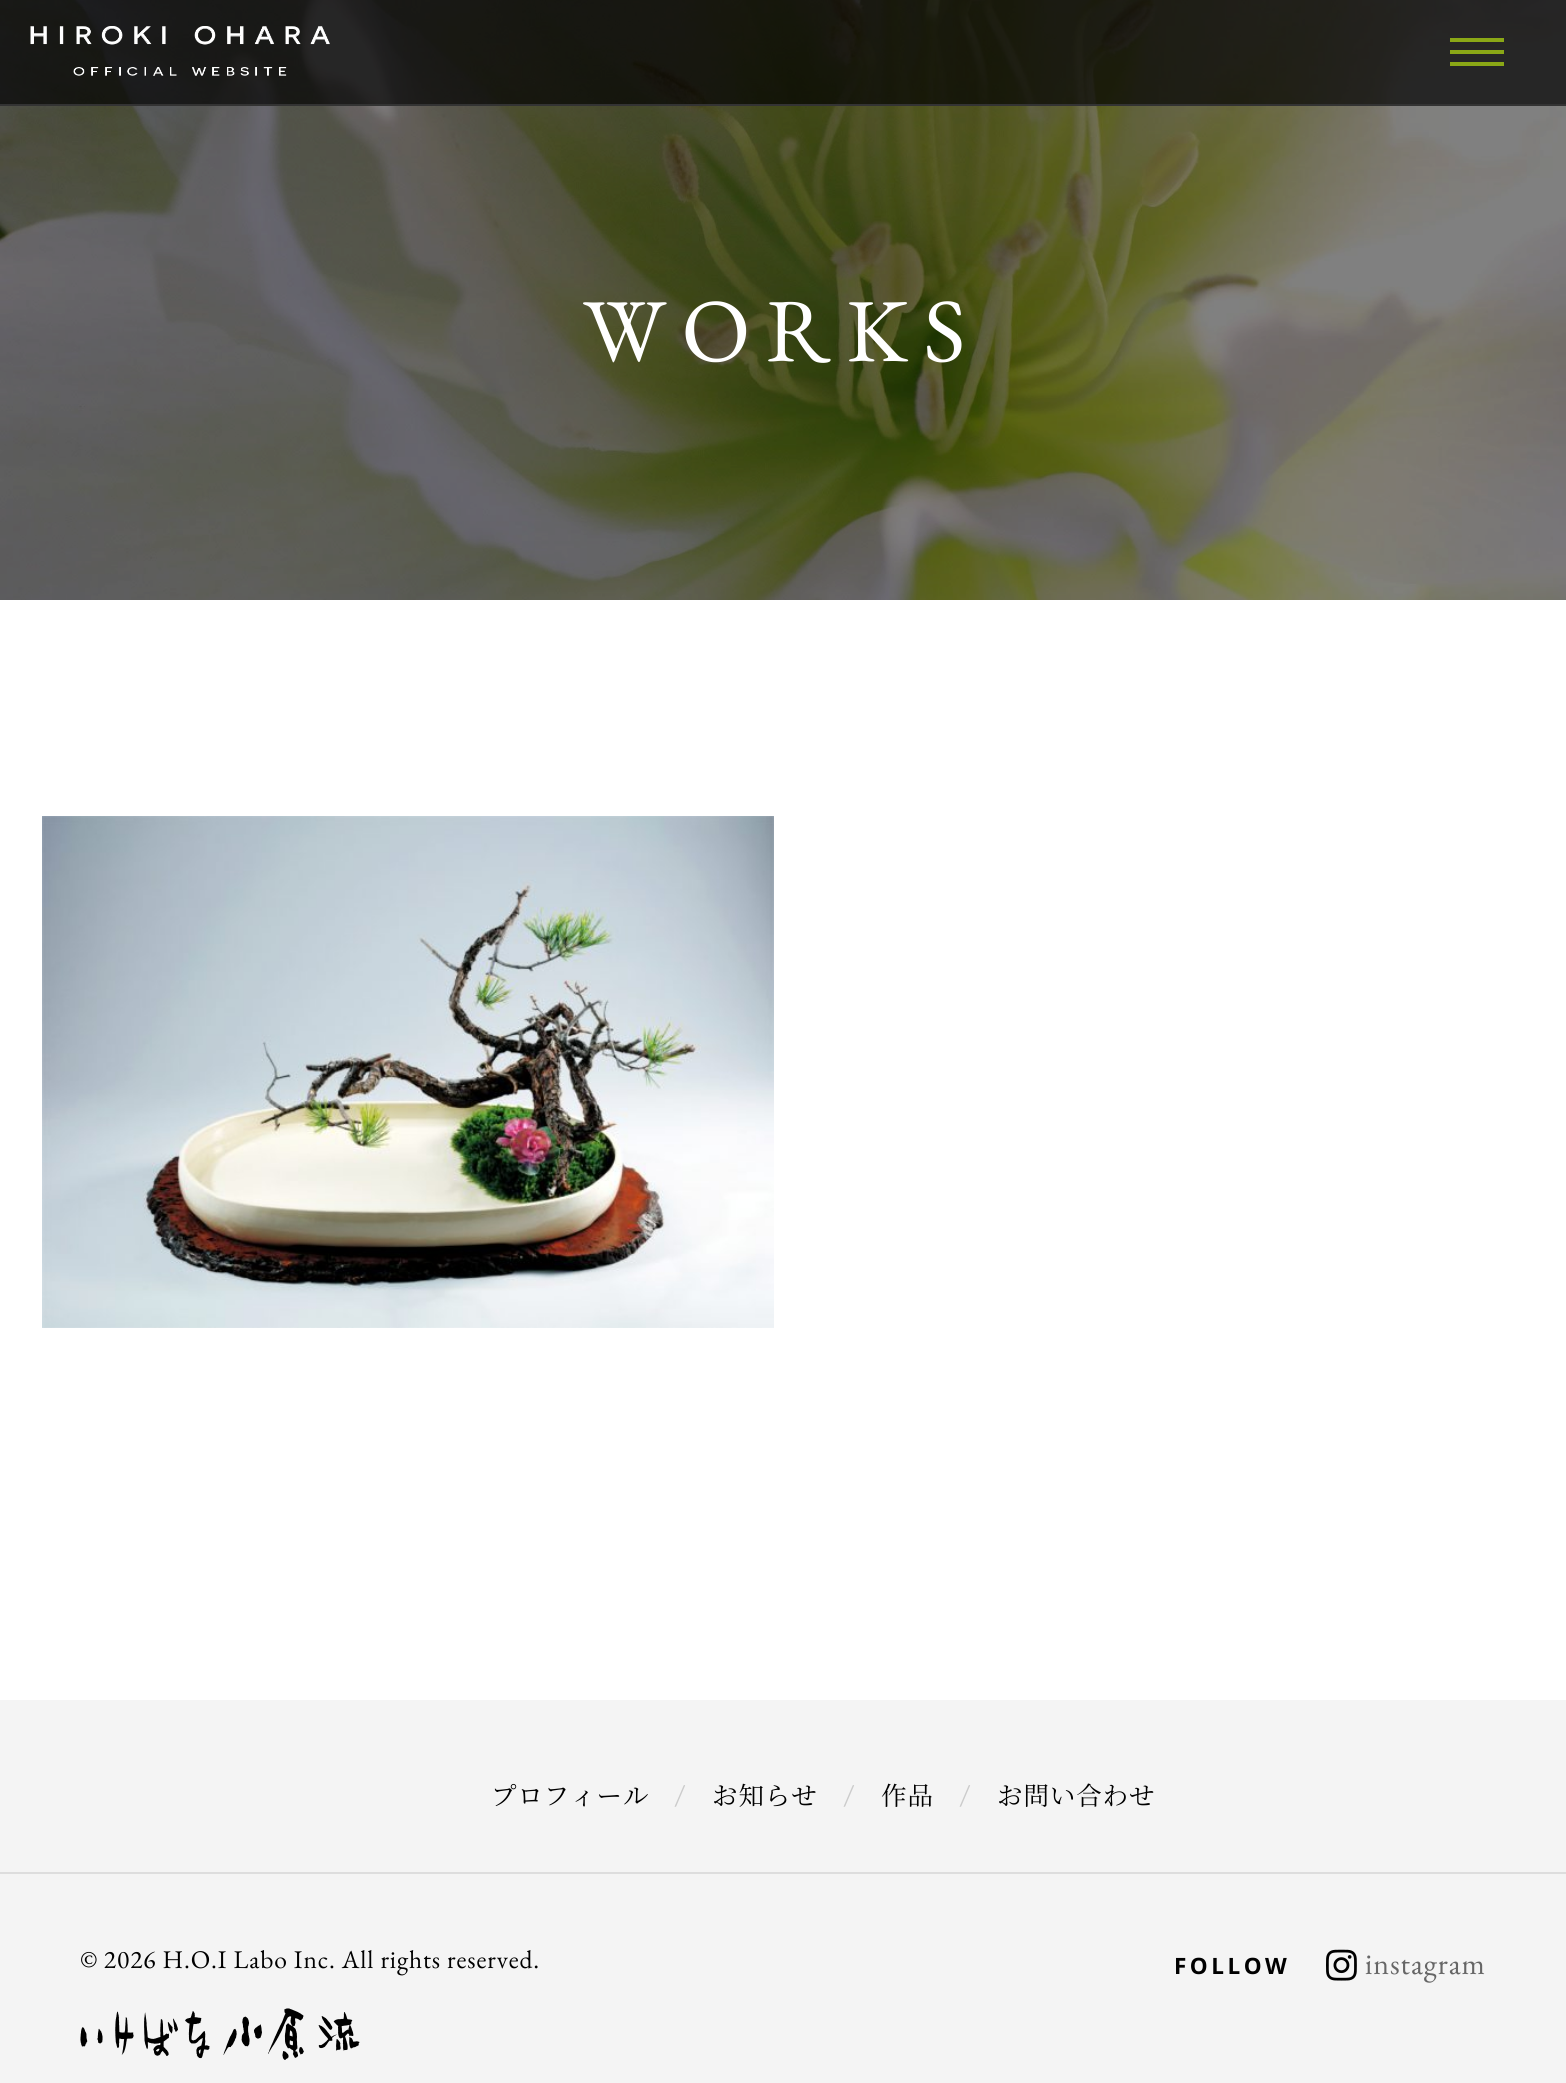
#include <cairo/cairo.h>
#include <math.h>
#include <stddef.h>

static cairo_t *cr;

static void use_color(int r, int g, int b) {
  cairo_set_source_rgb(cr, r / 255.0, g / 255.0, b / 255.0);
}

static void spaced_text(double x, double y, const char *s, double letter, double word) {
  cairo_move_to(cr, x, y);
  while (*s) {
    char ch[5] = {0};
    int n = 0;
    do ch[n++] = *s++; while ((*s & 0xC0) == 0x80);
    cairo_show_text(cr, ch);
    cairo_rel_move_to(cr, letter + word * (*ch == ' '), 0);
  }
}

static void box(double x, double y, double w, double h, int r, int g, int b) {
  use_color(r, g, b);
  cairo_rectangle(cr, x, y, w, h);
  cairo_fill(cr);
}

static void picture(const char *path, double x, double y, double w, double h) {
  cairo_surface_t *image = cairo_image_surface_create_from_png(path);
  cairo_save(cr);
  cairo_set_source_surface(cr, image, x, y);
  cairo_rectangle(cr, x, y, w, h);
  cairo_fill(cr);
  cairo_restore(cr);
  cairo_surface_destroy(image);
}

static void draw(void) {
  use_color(255, 255, 255);
  cairo_paint(cr);
  picture("img_02.png", 0, 0, 1566, 600);
  cairo_set_source_rgba(cr, 0, 0, 0, 0.7);
  cairo_rectangle(cr, 0, 0, 1566, 104);
  cairo_fill(cr);
  box(0, 104, 1566, 2, 51, 51, 51);
  picture("img_01.png", 30, 26, 300, 50);
  box(1450, 38, 54, 4, 138, 167, 22);
  box(1450, 50, 54, 4, 138, 167, 22);
  box(1450, 62, 54, 4, 138, 167, 22);
  picture("img_03.png", 42, 816, 732, 512);
  box(0, 1700, 1566, 383, 244, 244, 244);
  box(0, 1872, 1566, 2, 221, 221, 221);
  picture("img_04.png", 1326, 1949, 31, 32);
  picture("img_05.png", 80, 2008, 280, 52);
  cairo_select_font_face(cr, "EB Garamond", CAIRO_FONT_SLANT_NORMAL, CAIRO_FONT_WEIGHT_NORMAL);
  cairo_set_font_size(cr, 90);
  use_color(255, 255, 255);
  spaced_text(583, 361, "WORKS", 16, 0);
  cairo_select_font_face(cr, "Noto Serif JP", CAIRO_FONT_SLANT_NORMAL, CAIRO_FONT_WEIGHT_NORMAL);
  cairo_set_font_size(cr, 25.5);
  use_color(0, 0, 0);
  spaced_text(491, 1805, "プロフィール", 0.9, 0);
  cairo_select_font_face(cr, "EB Garamond", CAIRO_FONT_SLANT_NORMAL, CAIRO_FONT_WEIGHT_NORMAL);
  cairo_set_font_size(cr, 30);
  use_color(204, 204, 204);
  spaced_text(674, 1805, "/", 0.9, 0);
  cairo_select_font_face(cr, "Noto Serif JP", CAIRO_FONT_SLANT_NORMAL, CAIRO_FONT_WEIGHT_NORMAL);
  cairo_set_font_size(cr, 25.5);
  use_color(0, 0, 0);
  spaced_text(712, 1805, "お知らせ", 0.9, 0);
  cairo_select_font_face(cr, "EB Garamond", CAIRO_FONT_SLANT_NORMAL, CAIRO_FONT_WEIGHT_NORMAL);
  cairo_set_font_size(cr, 30);
  use_color(204, 204, 204);
  spaced_text(843, 1805, "/", 0.9, 0);
  cairo_select_font_face(cr, "Noto Serif JP", CAIRO_FONT_SLANT_NORMAL, CAIRO_FONT_WEIGHT_NORMAL);
  cairo_set_font_size(cr, 25.5);
  use_color(0, 0, 0);
  spaced_text(881, 1805, "作品", 0.9, 0);
  cairo_select_font_face(cr, "EB Garamond", CAIRO_FONT_SLANT_NORMAL, CAIRO_FONT_WEIGHT_NORMAL);
  cairo_set_font_size(cr, 30);
  use_color(204, 204, 204);
  spaced_text(959, 1805, "/", 0.9, 0);
  cairo_select_font_face(cr, "Noto Serif JP", CAIRO_FONT_SLANT_NORMAL, CAIRO_FONT_WEIGHT_NORMAL);
  cairo_set_font_size(cr, 25.5);
  use_color(0, 0, 0);
  spaced_text(997, 1805, "お問い合わせ", 0.9, 0);
  cairo_select_font_face(cr, "EB Garamond", CAIRO_FONT_SLANT_NORMAL, CAIRO_FONT_WEIGHT_NORMAL);
  spaced_text(80, 1968, "© 2026 H.O.I Labo Inc. All rights reserved.", 0.9, 0);
  cairo_select_font_face(cr, "Open Sans", CAIRO_FONT_SLANT_NORMAL, CAIRO_FONT_WEIGHT_BOLD);
  cairo_set_font_size(cr, 22.5);
  spaced_text(1174, 1974, "FOLLOW", 3.5, 0);
  cairo_select_font_face(cr, "EB Garamond", CAIRO_FONT_SLANT_NORMAL, CAIRO_FONT_WEIGHT_NORMAL);
  cairo_set_font_size(cr, 30);
  use_color(102, 102, 102);
  spaced_text(1365, 1974, "instagram", 0.9, 0);
}

int main(void) {
  cairo_surface_t *surface = cairo_image_surface_create(CAIRO_FORMAT_RGB24, 1566, 2083);
  cr = cairo_create(surface);
  cairo_font_options_t *options = cairo_font_options_create();
  cairo_font_options_set_hint_metrics(options, CAIRO_HINT_METRICS_OFF);
  cairo_font_options_set_hint_style(options, CAIRO_HINT_STYLE_NONE);
  cairo_set_font_options(cr, options);
  cairo_set_miter_limit(cr, 4);
  draw();
  cairo_surface_write_to_png(surface, "out.png");
  cairo_font_options_destroy(options);
  cairo_destroy(cr);
  cairo_surface_destroy(surface);
  return 0;
}
